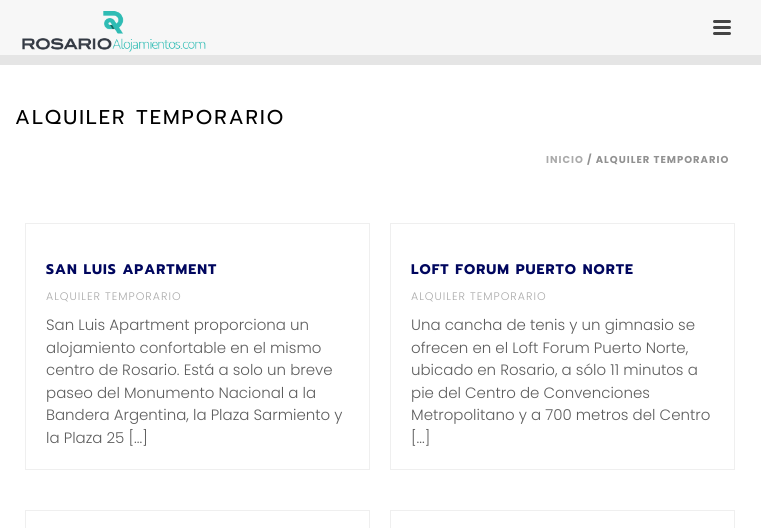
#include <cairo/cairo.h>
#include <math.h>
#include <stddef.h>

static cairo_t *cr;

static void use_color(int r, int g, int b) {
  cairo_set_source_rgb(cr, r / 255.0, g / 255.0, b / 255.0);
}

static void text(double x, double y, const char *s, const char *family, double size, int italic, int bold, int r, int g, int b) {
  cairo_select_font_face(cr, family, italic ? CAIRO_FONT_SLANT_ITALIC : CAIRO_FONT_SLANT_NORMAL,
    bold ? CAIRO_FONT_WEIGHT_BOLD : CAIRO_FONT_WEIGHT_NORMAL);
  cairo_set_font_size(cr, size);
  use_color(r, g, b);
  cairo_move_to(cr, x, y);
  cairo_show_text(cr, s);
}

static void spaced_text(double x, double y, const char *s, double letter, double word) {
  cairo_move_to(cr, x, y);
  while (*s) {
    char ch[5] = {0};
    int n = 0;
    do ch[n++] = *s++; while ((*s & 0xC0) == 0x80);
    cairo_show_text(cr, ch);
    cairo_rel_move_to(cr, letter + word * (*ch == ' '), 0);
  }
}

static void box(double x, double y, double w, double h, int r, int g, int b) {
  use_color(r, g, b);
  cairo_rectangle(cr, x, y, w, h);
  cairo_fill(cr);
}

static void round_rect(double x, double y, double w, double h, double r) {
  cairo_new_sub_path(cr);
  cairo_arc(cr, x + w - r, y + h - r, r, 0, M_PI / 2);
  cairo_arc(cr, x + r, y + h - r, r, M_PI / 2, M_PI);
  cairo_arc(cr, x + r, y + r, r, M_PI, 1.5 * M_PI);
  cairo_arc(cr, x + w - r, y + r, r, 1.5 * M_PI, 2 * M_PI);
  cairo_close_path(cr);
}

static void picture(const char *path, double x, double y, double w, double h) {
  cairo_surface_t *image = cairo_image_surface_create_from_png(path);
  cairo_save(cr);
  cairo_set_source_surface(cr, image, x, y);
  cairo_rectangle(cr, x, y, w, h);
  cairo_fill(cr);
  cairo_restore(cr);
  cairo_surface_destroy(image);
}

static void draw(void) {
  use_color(255, 255, 255);
  cairo_paint(cr);
  box(0, 55, 761, 10, 229, 229, 229);
  box(0, 0, 761, 55, 247, 247, 247);
  picture("img_01.png", 22, 11, 184, 41);
  use_color(68, 68, 68);
  round_rect(713, 20, 18, 3, 1.5);
  cairo_fill(cr);
  round_rect(713, 26, 18, 3, 1.5);
  cairo_fill(cr);
  round_rect(713, 32, 18, 3, 1.5);
  cairo_fill(cr);
  cairo_rectangle(cr, 25.5, 223.5, 344, 246);
  use_color(239, 239, 239);
  cairo_set_line_width(cr, 1);
  cairo_stroke(cr);
  cairo_rectangle(cr, 390.5, 223.5, 344, 246);
  cairo_stroke(cr);
  cairo_rectangle(cr, 25.5, 510.5, 344, 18);
  cairo_stroke(cr);
  cairo_rectangle(cr, 390.5, 510.5, 344, 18);
  cairo_stroke(cr);
  cairo_select_font_face(cr, "Prompt", CAIRO_FONT_SLANT_NORMAL, CAIRO_FONT_WEIGHT_NORMAL);
  cairo_set_font_size(cr, 20);
  use_color(0, 0, 0);
  spaced_text(15, 124, "ALQUILER TEMPORARIO", 2, 0);
  cairo_select_font_face(cr, "Poppins", CAIRO_FONT_SLANT_NORMAL, CAIRO_FONT_WEIGHT_BOLD);
  cairo_set_font_size(cr, 10);
  use_color(170, 170, 170);
  spaced_text(546, 163, "INICIO", 1, 0);
  use_color(145, 145, 145);
  spaced_text(587, 163, "/ ALQUILER TEMPORARIO", 1, 0);
  cairo_select_font_face(cr, "Prompt", CAIRO_FONT_SLANT_NORMAL, CAIRO_FONT_WEIGHT_BOLD);
  cairo_set_font_size(cr, 14);
  use_color(0, 6, 94);
  spaced_text(46, 274, "SAN LUIS APARTMENT", 1, 0);
  cairo_select_font_face(cr, "Poppins Light", CAIRO_FONT_SLANT_NORMAL, CAIRO_FONT_WEIGHT_NORMAL);
  cairo_set_font_size(cr, 11);
  use_color(170, 170, 170);
  spaced_text(46, 300, "ALQUILER TEMPORARIO", 1, 0);
  text(46, 330, "San Luis Apartment proporciona un", "Poppins Light", 15, 0, 0, 93, 93, 93);
  text(46, 353, "alojamiento confortable en el mismo", "Poppins Light", 15, 0, 0, 93, 93, 93);
  text(46, 375, "centro de Rosario. Está a solo un breve", "Poppins Light", 15, 0, 0, 93, 93, 93);
  text(46, 398, "paseo del Monumento Nacional a la", "Poppins Light", 15, 0, 0, 93, 93, 93);
  text(46, 420, "Bandera Argentina, la Plaza Sarmiento y", "Poppins Light", 15, 0, 0, 93, 93, 93);
  text(46, 443, "la Plaza 25 [...]", "Poppins Light", 15, 0, 0, 93, 93, 93);
  cairo_select_font_face(cr, "Prompt", CAIRO_FONT_SLANT_NORMAL, CAIRO_FONT_WEIGHT_BOLD);
  cairo_set_font_size(cr, 14);
  use_color(0, 6, 94);
  spaced_text(411, 274, "LOFT FORUM PUERTO NORTE", 1, 0);
  cairo_select_font_face(cr, "Poppins Light", CAIRO_FONT_SLANT_NORMAL, CAIRO_FONT_WEIGHT_NORMAL);
  cairo_set_font_size(cr, 11);
  use_color(170, 170, 170);
  spaced_text(411, 300, "ALQUILER TEMPORARIO", 1, 0);
  text(411, 330, "Una cancha de tenis y un gimnasio se", "Poppins Light", 15, 0, 0, 93, 93, 93);
  text(411, 353, "ofrecen en el Loft Forum Puerto Norte,", "Poppins Light", 15, 0, 0, 93, 93, 93);
  text(411, 375, "ubicado en Rosario, a sólo 11 minutos a", "Poppins Light", 15, 0, 0, 93, 93, 93);
  text(411, 398, "pie del Centro de Convenciones", "Poppins Light", 15, 0, 0, 93, 93, 93);
  text(411, 420, "Metropolitano y a 700 metros del Centro", "Poppins Light", 15, 0, 0, 93, 93, 93);
  text(411, 443, "[...]", "Poppins Light", 15, 0, 0, 93, 93, 93);
}

int main(void) {
  cairo_surface_t *surface = cairo_image_surface_create(CAIRO_FORMAT_RGB24, 761, 528);
  cr = cairo_create(surface);
  cairo_font_options_t *options = cairo_font_options_create();
  cairo_font_options_set_hint_metrics(options, CAIRO_HINT_METRICS_OFF);
  cairo_font_options_set_hint_style(options, CAIRO_HINT_STYLE_NONE);
  cairo_set_font_options(cr, options);
  cairo_set_miter_limit(cr, 4);
  draw();
  cairo_surface_write_to_png(surface, "out.png");
  cairo_font_options_destroy(options);
  cairo_destroy(cr);
  cairo_surface_destroy(surface);
  return 0;
}
